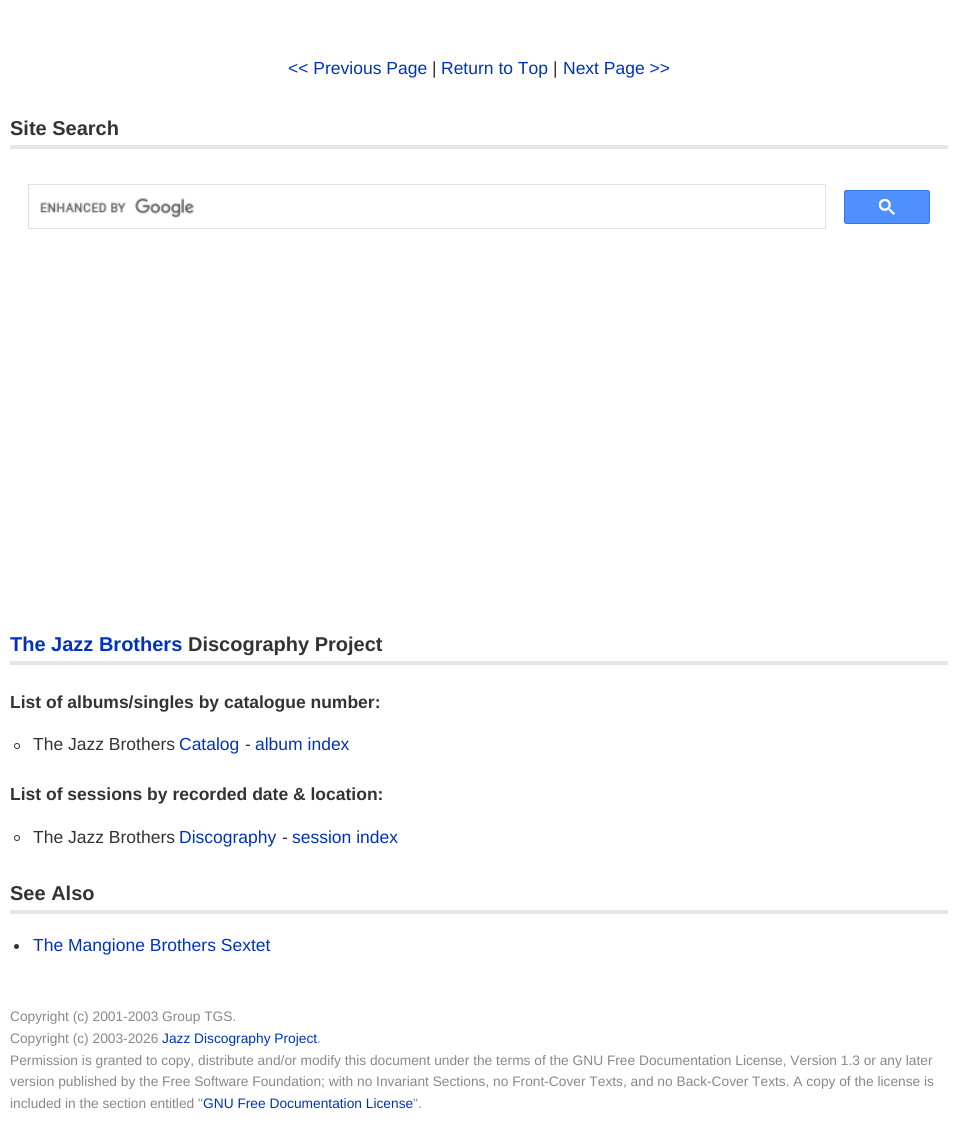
#include <cairo/cairo.h>
#include <math.h>
#include <stddef.h>

static cairo_t *cr;

static void use_color(int r, int g, int b) {
  cairo_set_source_rgb(cr, r / 255.0, g / 255.0, b / 255.0);
}

static void text(double x, double y, const char *s, const char *family, double size, int italic, int bold, int r, int g, int b) {
  cairo_select_font_face(cr, family, italic ? CAIRO_FONT_SLANT_ITALIC : CAIRO_FONT_SLANT_NORMAL,
    bold ? CAIRO_FONT_WEIGHT_BOLD : CAIRO_FONT_WEIGHT_NORMAL);
  cairo_set_font_size(cr, size);
  use_color(r, g, b);
  cairo_move_to(cr, x, y);
  cairo_show_text(cr, s);
}

static void box(double x, double y, double w, double h, int r, int g, int b) {
  use_color(r, g, b);
  cairo_rectangle(cr, x, y, w, h);
  cairo_fill(cr);
}

static void round_rect(double x, double y, double w, double h, double r) {
  cairo_new_sub_path(cr);
  cairo_arc(cr, x + w - r, y + h - r, r, 0, M_PI / 2);
  cairo_arc(cr, x + r, y + h - r, r, M_PI / 2, M_PI);
  cairo_arc(cr, x + r, y + r, r, M_PI, 1.5 * M_PI);
  cairo_arc(cr, x + w - r, y + r, r, 1.5 * M_PI, 2 * M_PI);
  cairo_close_path(cr);
}

static void picture(const char *path, double x, double y, double w, double h) {
  cairo_surface_t *image = cairo_image_surface_create_from_png(path);
  cairo_save(cr);
  cairo_set_source_surface(cr, image, x, y);
  cairo_rectangle(cr, x, y, w, h);
  cairo_fill(cr);
  cairo_restore(cr);
  cairo_surface_destroy(image);
}

static void draw(void) {
  use_color(255, 255, 255);
  cairo_paint(cr);
  box(10, 145, 938, 4, 230, 230, 230);
  cairo_rectangle(cr, 28.5, 184.5, 797, 44);
  use_color(223, 225, 229);
  cairo_set_line_width(cr, 1);
  cairo_stroke(cr);
  picture("img_01.png", 40, 198, 154, 20);
  use_color(77, 144, 254);
  round_rect(844.5, 190.5, 85, 33, 2);
  cairo_fill_preserve(cr);
  use_color(48, 121, 237);
  cairo_stroke(cr);
  picture("img_02.png", 879, 199, 16, 16);
  box(10, 661, 938, 4, 230, 230, 230);
  cairo_arc(cr, 17, 746, 2.5, 0, 2 * M_PI);
  use_color(51, 51, 51);
  cairo_stroke(cr);
  cairo_arc(cr, 17, 838, 2.5, 0, 2 * M_PI);
  cairo_stroke(cr);
  box(10, 910, 938, 4, 230, 230, 230);
  use_color(51, 51, 51);
  cairo_arc(cr, 16.5, 946.5, 2.5, 0, 2 * M_PI);
  cairo_fill(cr);
  text(288, 74, "<< Previous Page", "Liberation Sans", 17.5, 0, 0, 0, 51, 187);
  text(432, 74, "|", "Liberation Sans", 17.5, 0, 0, 51, 51, 51);
  text(441, 74, "Return to Top", "Liberation Sans", 17.5, 0, 0, 0, 51, 187);
  text(553, 74, "|", "Liberation Sans", 17.5, 0, 0, 51, 51, 51);
  text(563, 74, "Next Page >>", "Liberation Sans", 17.5, 0, 0, 0, 51, 187);
  text(10, 135, "Site Search", "Liberation Sans", 20, 0, 1, 51, 51, 51);
  text(10, 651, "The Jazz Brothers", "Liberation Sans", 20, 0, 1, 0, 51, 187);
  text(188, 651, "Discography Project", "Liberation Sans", 20, 0, 1, 51, 51, 51);
  text(10, 708, "List of albums/singles by catalogue number:", "Liberation Sans", 17.5, 0, 1, 51, 51, 51);
  text(33, 750, "The Jazz Brothers", "Liberation Sans", 17.5, 0, 0, 51, 51, 51);
  text(179, 750, "Catalog", "Liberation Sans", 17.5, 0, 0, 0, 51, 187);
  text(245, 750, "-", "Liberation Sans", 17.5, 0, 0, 51, 51, 51);
  text(255, 750, "album index", "Liberation Sans", 17.5, 0, 0, 0, 51, 187);
  text(10, 800, "List of sessions by recorded date & location:", "Liberation Sans", 17.5, 0, 1, 51, 51, 51);
  text(33, 843, "The Jazz Brothers", "Liberation Sans", 17.5, 0, 0, 51, 51, 51);
  text(179, 843, "Discography", "Liberation Sans", 17.5, 0, 0, 0, 51, 187);
  text(282, 843, "-", "Liberation Sans", 17.5, 0, 0, 51, 51, 51);
  text(292, 843, "session index", "Liberation Sans", 17.5, 0, 0, 0, 51, 187);
  text(10, 900, "See Also", "Liberation Sans", 20, 0, 1, 51, 51, 51);
  text(33, 951, "The Mangione Brothers Sextet", "Liberation Sans", 17.5, 0, 0, 0, 51, 187);
  text(10, 1021, "Copyright (c) 2001-2003 Group TGS.", "Liberation Sans", 13.75, 0, 0, 136, 136, 136);
  text(10, 1043, "Copyright (c) 2003-2026", "Liberation Sans", 13.75, 0, 0, 136, 136, 136);
  text(162, 1043, "Jazz Discography Project", "Liberation Sans", 13.75, 0, 0, 0, 51, 187);
  text(317, 1043, ".", "Liberation Sans", 13.75, 0, 0, 136, 136, 136);
  text(10, 1065, "Permission is granted to copy, distribute and/or modify this document under the terms of the GNU Free Documentation License, Version 1.3 or any later", "Liberation Sans", 13.75, 0, 0, 136, 136, 136);
  text(10, 1086, "version published by the Free Software Foundation; with no Invariant Sections, no Front-Cover Texts, and no Back-Cover Texts. A copy of the license is", "Liberation Sans", 13.75, 0, 0, 136, 136, 136);
  text(10, 1108, "included in the section entitled \"", "Liberation Sans", 13.75, 0, 0, 136, 136, 136);
  text(203, 1108, "GNU Free Documentation License", "Liberation Sans", 13.75, 0, 0, 0, 51, 187);
  text(413, 1108, "\".", "Liberation Sans", 13.75, 0, 0, 136, 136, 136);
}

int main(void) {
  cairo_surface_t *surface = cairo_image_surface_create(CAIRO_FORMAT_RGB24, 957, 1134);
  cr = cairo_create(surface);
  cairo_font_options_t *options = cairo_font_options_create();
  cairo_font_options_set_hint_metrics(options, CAIRO_HINT_METRICS_OFF);
  cairo_font_options_set_hint_style(options, CAIRO_HINT_STYLE_NONE);
  cairo_set_font_options(cr, options);
  cairo_set_miter_limit(cr, 4);
  draw();
  cairo_surface_write_to_png(surface, "out.png");
  cairo_font_options_destroy(options);
  cairo_destroy(cr);
  cairo_surface_destroy(surface);
  return 0;
}
